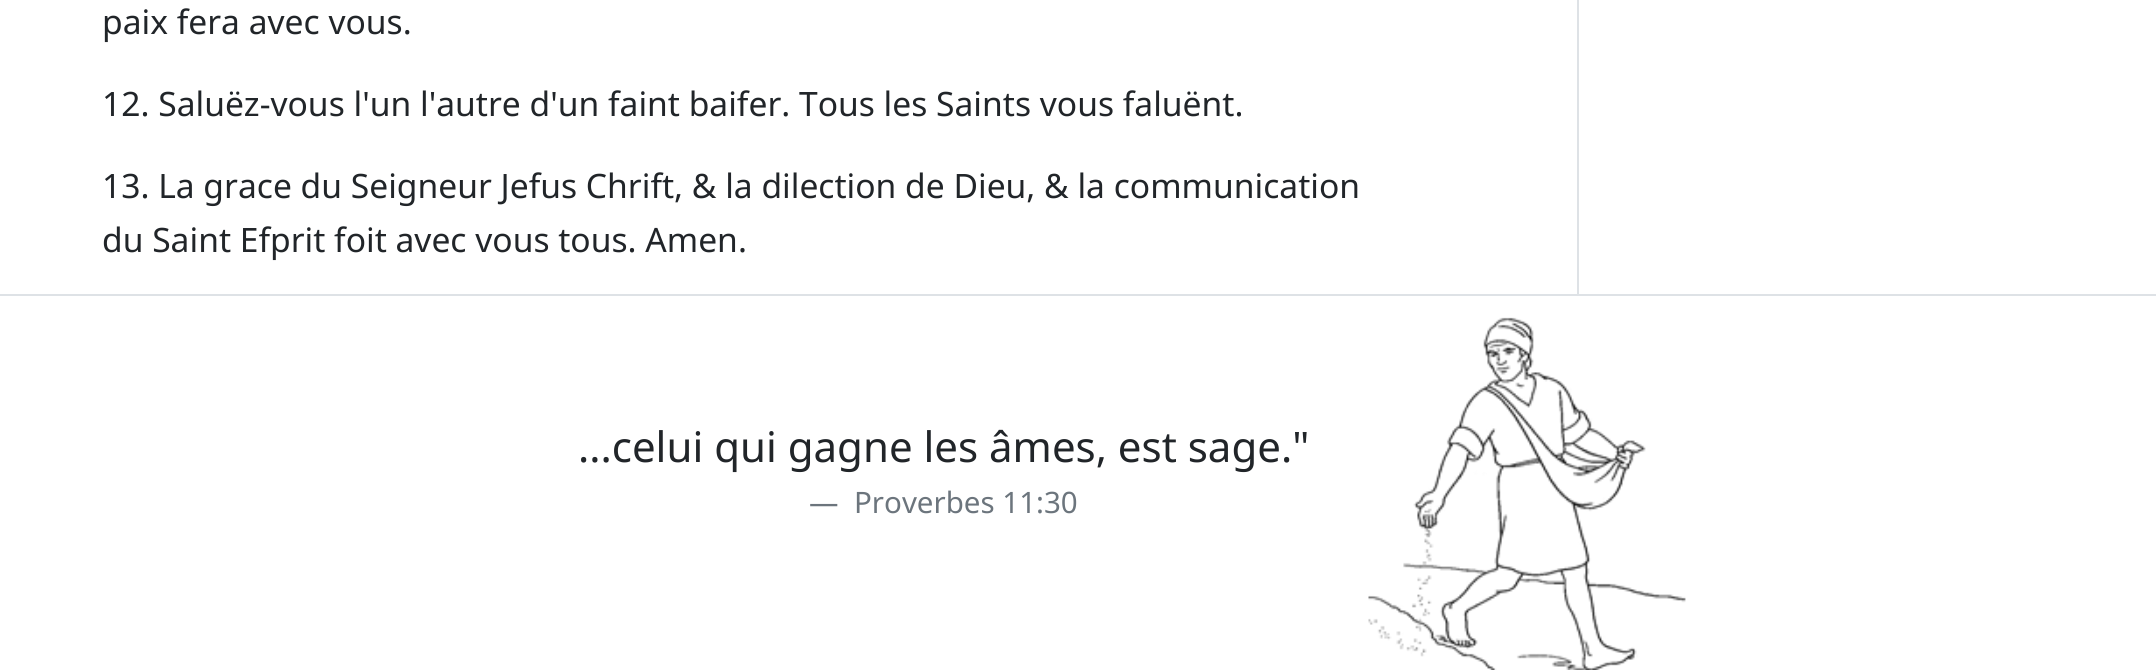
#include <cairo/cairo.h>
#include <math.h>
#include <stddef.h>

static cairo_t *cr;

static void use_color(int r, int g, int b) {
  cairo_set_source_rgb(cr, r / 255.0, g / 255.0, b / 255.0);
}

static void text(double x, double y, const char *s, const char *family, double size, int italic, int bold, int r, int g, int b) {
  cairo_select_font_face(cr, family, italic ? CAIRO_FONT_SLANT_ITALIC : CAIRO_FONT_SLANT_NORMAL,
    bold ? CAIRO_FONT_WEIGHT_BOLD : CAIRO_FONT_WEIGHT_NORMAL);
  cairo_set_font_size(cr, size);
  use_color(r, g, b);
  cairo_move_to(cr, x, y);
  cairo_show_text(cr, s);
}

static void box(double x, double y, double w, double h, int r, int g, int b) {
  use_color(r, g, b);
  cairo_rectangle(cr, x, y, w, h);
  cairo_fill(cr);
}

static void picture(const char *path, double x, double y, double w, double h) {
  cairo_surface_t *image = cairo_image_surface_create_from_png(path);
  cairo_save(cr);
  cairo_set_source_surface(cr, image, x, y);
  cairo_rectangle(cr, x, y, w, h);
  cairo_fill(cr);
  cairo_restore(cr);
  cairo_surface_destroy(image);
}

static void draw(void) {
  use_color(255, 255, 255);
  cairo_paint(cr);
  box(1577, 0, 2, 294, 222, 226, 230);
  box(0, 294, 2156, 2, 222, 226, 230);
  picture("img_01.png", 1368, 317, 318, 353);
  text(102, 34, "paix fera avec vous.", "Noto Sans", 33.6, 0, 0, 33, 37, 41);
  text(102, 116, "12. Saluëz-vous l'un l'autre d'un faint baifer. Tous les Saints vous faluënt.", "Noto Sans", 33.6, 0, 0, 33, 37, 41);
  text(102, 198, "13. La grace du Seigneur Jefus Chrift, & la dilection de Dieu, & la communication", "Noto Sans", 33.6, 0, 0, 33, 37, 41);
  text(102, 252, "du Saint Efprit foit avec vous tous. Amen.", "Noto Sans", 33.6, 0, 0, 33, 37, 41);
  text(578, 462, "...celui qui gagne les âmes, est sage.\"", "Noto Sans", 42, 0, 0, 33, 37, 41);
  text(809, 513, "—", "Noto Sans", 29.5, 0, 0, 108, 117, 125);
  text(854, 513, "Proverbes 11:30", "Noto Sans", 29.5, 0, 0, 108, 117, 125);
}

int main(void) {
  cairo_surface_t *surface = cairo_image_surface_create(CAIRO_FORMAT_RGB24, 2156, 670);
  cr = cairo_create(surface);
  cairo_font_options_t *options = cairo_font_options_create();
  cairo_font_options_set_hint_metrics(options, CAIRO_HINT_METRICS_OFF);
  cairo_font_options_set_hint_style(options, CAIRO_HINT_STYLE_NONE);
  cairo_set_font_options(cr, options);
  cairo_set_miter_limit(cr, 4);
  draw();
  cairo_surface_write_to_png(surface, "out.png");
  cairo_font_options_destroy(options);
  cairo_destroy(cr);
  cairo_surface_destroy(surface);
  return 0;
}
